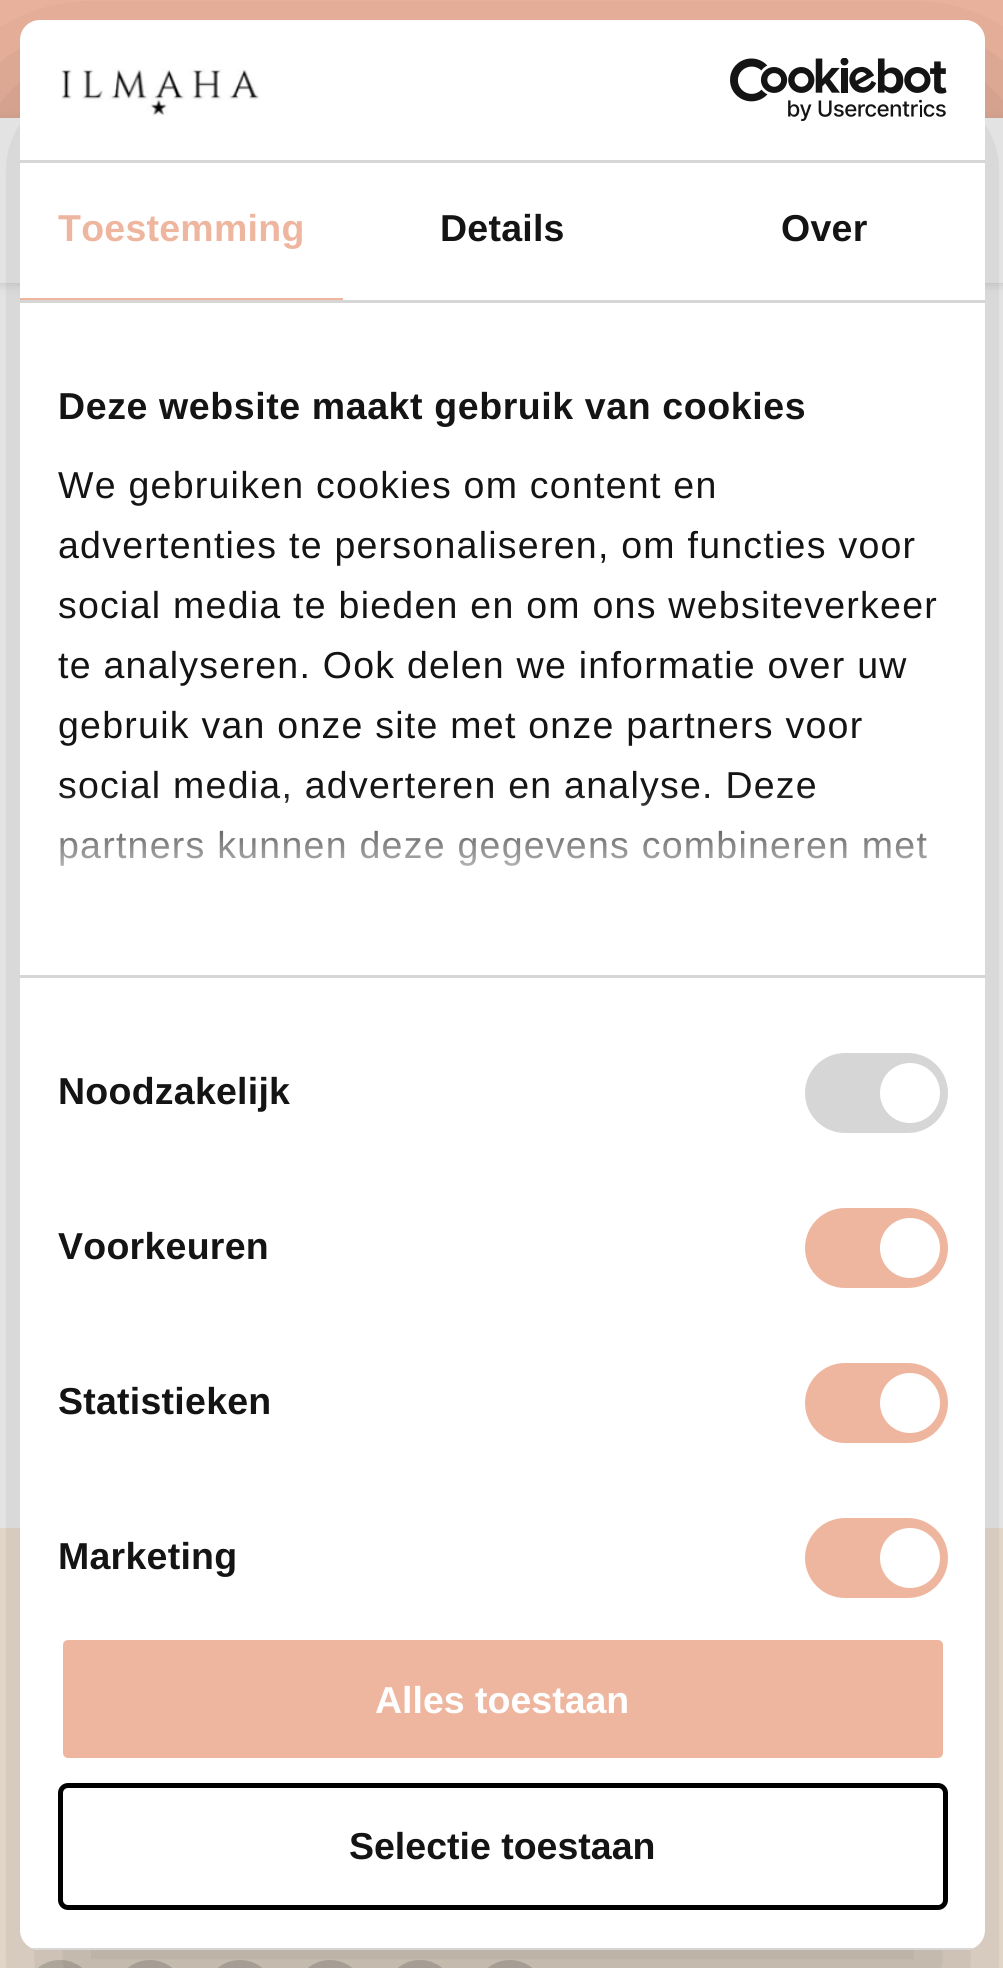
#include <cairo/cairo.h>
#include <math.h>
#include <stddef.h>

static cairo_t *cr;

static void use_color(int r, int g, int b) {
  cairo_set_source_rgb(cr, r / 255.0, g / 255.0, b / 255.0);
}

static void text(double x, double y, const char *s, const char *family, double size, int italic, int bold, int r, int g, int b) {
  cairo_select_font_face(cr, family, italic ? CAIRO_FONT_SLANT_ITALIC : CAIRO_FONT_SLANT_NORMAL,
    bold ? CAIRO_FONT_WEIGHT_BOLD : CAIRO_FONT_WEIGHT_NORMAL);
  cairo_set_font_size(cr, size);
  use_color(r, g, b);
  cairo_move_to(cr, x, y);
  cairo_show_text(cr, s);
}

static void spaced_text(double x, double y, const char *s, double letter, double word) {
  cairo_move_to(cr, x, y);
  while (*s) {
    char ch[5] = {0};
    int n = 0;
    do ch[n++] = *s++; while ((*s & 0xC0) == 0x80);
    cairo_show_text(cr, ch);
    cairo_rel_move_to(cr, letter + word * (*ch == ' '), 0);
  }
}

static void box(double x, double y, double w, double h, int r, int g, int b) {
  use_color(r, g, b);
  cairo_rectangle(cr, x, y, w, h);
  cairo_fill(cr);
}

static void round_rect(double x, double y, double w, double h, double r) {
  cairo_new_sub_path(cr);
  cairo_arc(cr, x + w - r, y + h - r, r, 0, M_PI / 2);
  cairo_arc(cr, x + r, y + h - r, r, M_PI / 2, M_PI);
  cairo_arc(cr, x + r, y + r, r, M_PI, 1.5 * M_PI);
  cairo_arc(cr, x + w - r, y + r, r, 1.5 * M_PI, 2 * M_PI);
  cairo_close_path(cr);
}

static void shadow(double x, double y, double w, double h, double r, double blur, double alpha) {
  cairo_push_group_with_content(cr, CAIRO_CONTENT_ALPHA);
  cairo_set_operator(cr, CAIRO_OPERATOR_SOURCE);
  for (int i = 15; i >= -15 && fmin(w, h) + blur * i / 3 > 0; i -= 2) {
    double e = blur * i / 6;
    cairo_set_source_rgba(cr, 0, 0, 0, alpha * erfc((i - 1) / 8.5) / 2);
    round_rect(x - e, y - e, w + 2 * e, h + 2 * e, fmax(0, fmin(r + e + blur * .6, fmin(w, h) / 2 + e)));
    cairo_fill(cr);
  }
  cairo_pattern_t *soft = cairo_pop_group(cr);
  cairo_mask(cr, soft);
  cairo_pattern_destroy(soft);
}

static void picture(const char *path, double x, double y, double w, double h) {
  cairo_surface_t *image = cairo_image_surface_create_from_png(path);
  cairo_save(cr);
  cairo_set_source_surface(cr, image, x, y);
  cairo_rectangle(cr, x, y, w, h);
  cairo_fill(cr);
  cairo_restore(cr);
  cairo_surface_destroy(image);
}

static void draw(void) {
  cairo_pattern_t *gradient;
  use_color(255, 255, 255);
  cairo_paint(cr);
  box(0, 0, 1003, 118, 238, 182, 159);
  use_color(128, 128, 128);
  shadow(0, 120, 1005, 165, 0, 5, 0.25);
  box(0, 118, 1003, 165, 255, 255, 255);
  box(0, 1528, 1003, 440, 252, 239, 223);
  use_color(214, 203, 190);
  round_rect(25, 1960, 70, 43, 35);
  cairo_fill(cr);
  round_rect(115, 1960, 70, 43, 35);
  cairo_fill(cr);
  round_rect(205, 1960, 70, 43, 35);
  cairo_fill(cr);
  round_rect(295, 1960, 70, 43, 35);
  cairo_fill(cr);
  round_rect(385, 1960, 70, 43, 35);
  cairo_fill(cr);
  round_rect(475, 1960, 70, 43, 35);
  cairo_fill(cr);
  use_color(0, 0, 0);
  shadow(20, 100, 965, 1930, 20, 85, 0.3);
  use_color(255, 255, 255);
  round_rect(20, 20, 965, 1930, 20);
  cairo_fill(cr);
  box(20, 160, 965, 3, 214, 214, 214);
  picture("img_01.png", 61, 69, 199, 47);
  picture("img_02.png", 730, 58, 217, 63);
  box(20, 300, 965, 3, 214, 214, 214);
  box(20, 298, 323, 2, 238, 182, 159);
  box(20, 975, 965, 3, 214, 214, 214);
  round_rect(805, 1053, 143, 80, 40);
  cairo_fill(cr);
  use_color(255, 255, 255);
  cairo_arc(cr, 910, 1093, 30, 0, 2 * M_PI);
  cairo_fill(cr);
  use_color(238, 182, 159);
  round_rect(805, 1208, 143, 80, 40);
  cairo_fill(cr);
  use_color(255, 255, 255);
  cairo_arc(cr, 910, 1248, 30, 0, 2 * M_PI);
  cairo_fill(cr);
  use_color(238, 182, 159);
  round_rect(805, 1363, 143, 80, 40);
  cairo_fill(cr);
  use_color(255, 255, 255);
  cairo_arc(cr, 910, 1403, 30, 0, 2 * M_PI);
  cairo_fill(cr);
  use_color(238, 182, 159);
  round_rect(805, 1518, 143, 80, 40);
  cairo_fill(cr);
  use_color(255, 255, 255);
  cairo_arc(cr, 910, 1558, 30, 0, 2 * M_PI);
  cairo_fill(cr);
  cairo_save(cr);
  round_rect(20, 20, 965, 1930, 20);
  cairo_clip(cr);
  box(31, 1948, 943, 2, 214, 214, 214);
  cairo_restore(cr);
  use_color(238, 182, 159);
  round_rect(60.5, 1637.5, 885, 123, 7.5);
  cairo_fill_preserve(cr);
  use_color(255, 255, 255);
  cairo_set_line_width(cr, 5);
  cairo_stroke(cr);
  round_rect(60.5, 1785.5, 885, 122, 7.5);
  use_color(0, 0, 0);
  cairo_stroke(cr);
  cairo_select_font_face(cr, "Liberation Sans", CAIRO_FONT_SLANT_NORMAL, CAIRO_FONT_WEIGHT_BOLD);
  cairo_set_font_size(cr, 37.5);
  use_color(238, 182, 159);
  spaced_text(58, 241, "Toestemming", 0.25, 0);
  use_color(20, 20, 20);
  spaced_text(440, 241, "Details", 0.25, 0);
  spaced_text(781, 241, "Over", 0.25, 0);
  spaced_text(58, 419, "Deze website maakt gebruik van cookies", 0.6, 0);
  cairo_select_font_face(cr, "Liberation Sans", CAIRO_FONT_SLANT_NORMAL, CAIRO_FONT_WEIGHT_NORMAL);
  spaced_text(58, 498, "We gebruiken cookies om content en", 1.25, 0);
  spaced_text(58, 558, "advertenties te personaliseren, om functies voor", 1.25, 0);
  spaced_text(58, 618, "social media te bieden en om ons websiteverkeer", 1.25, 0);
  spaced_text(58, 678, "te analyseren. Ook delen we informatie over uw", 1.25, 0);
  spaced_text(58, 738, "gebruik van onze site met onze partners voor", 1.25, 0);
  spaced_text(58, 798, "social media, adverteren en analyse. Deze", 1.25, 0);
  spaced_text(58, 858, "partners kunnen deze gegevens combineren met", 1.25, 0);
  gradient = cairo_pattern_create_linear(486, 975, 486, 788);
  cairo_pattern_add_color_stop_rgba(gradient, 0, 1, 1, 1, 1);
  cairo_pattern_add_color_stop_rgba(gradient, 0.5, 1, 1, 1, 0.8);
  cairo_pattern_add_color_stop_rgba(gradient, 1, 1, 1, 1, 0);
  cairo_set_source(cr, gradient);
  cairo_pattern_destroy(gradient);
  cairo_rectangle(cr, 58, 791, 869, 75);
  cairo_fill(cr);
  cairo_select_font_face(cr, "Liberation Sans", CAIRO_FONT_SLANT_NORMAL, CAIRO_FONT_WEIGHT_BOLD);
  use_color(20, 20, 20);
  spaced_text(58, 1104, "Noodzakelijk", 0.25, 0);
  spaced_text(58, 1259, "Voorkeuren", 0.25, 0);
  spaced_text(58, 1414, "Statistieken", 0.25, 0);
  spaced_text(58, 1569, "Marketing", 0.25, 0);
  text(375, 1713, "Alles toestaan", "Liberation Sans", 37.5, 0, 1, 255, 255, 255);
  text(349, 1859, "Selectie toestaan", "Liberation Sans", 37.5, 0, 1, 20, 20, 20);
}

int main(void) {
  cairo_surface_t *surface = cairo_image_surface_create(CAIRO_FORMAT_RGB24, 1003, 1968);
  cr = cairo_create(surface);
  cairo_font_options_t *options = cairo_font_options_create();
  cairo_font_options_set_hint_metrics(options, CAIRO_HINT_METRICS_OFF);
  cairo_font_options_set_hint_style(options, CAIRO_HINT_STYLE_NONE);
  cairo_set_font_options(cr, options);
  cairo_set_miter_limit(cr, 4);
  draw();
  cairo_surface_write_to_png(surface, "out.png");
  cairo_font_options_destroy(options);
  cairo_destroy(cr);
  cairo_surface_destroy(surface);
  return 0;
}
